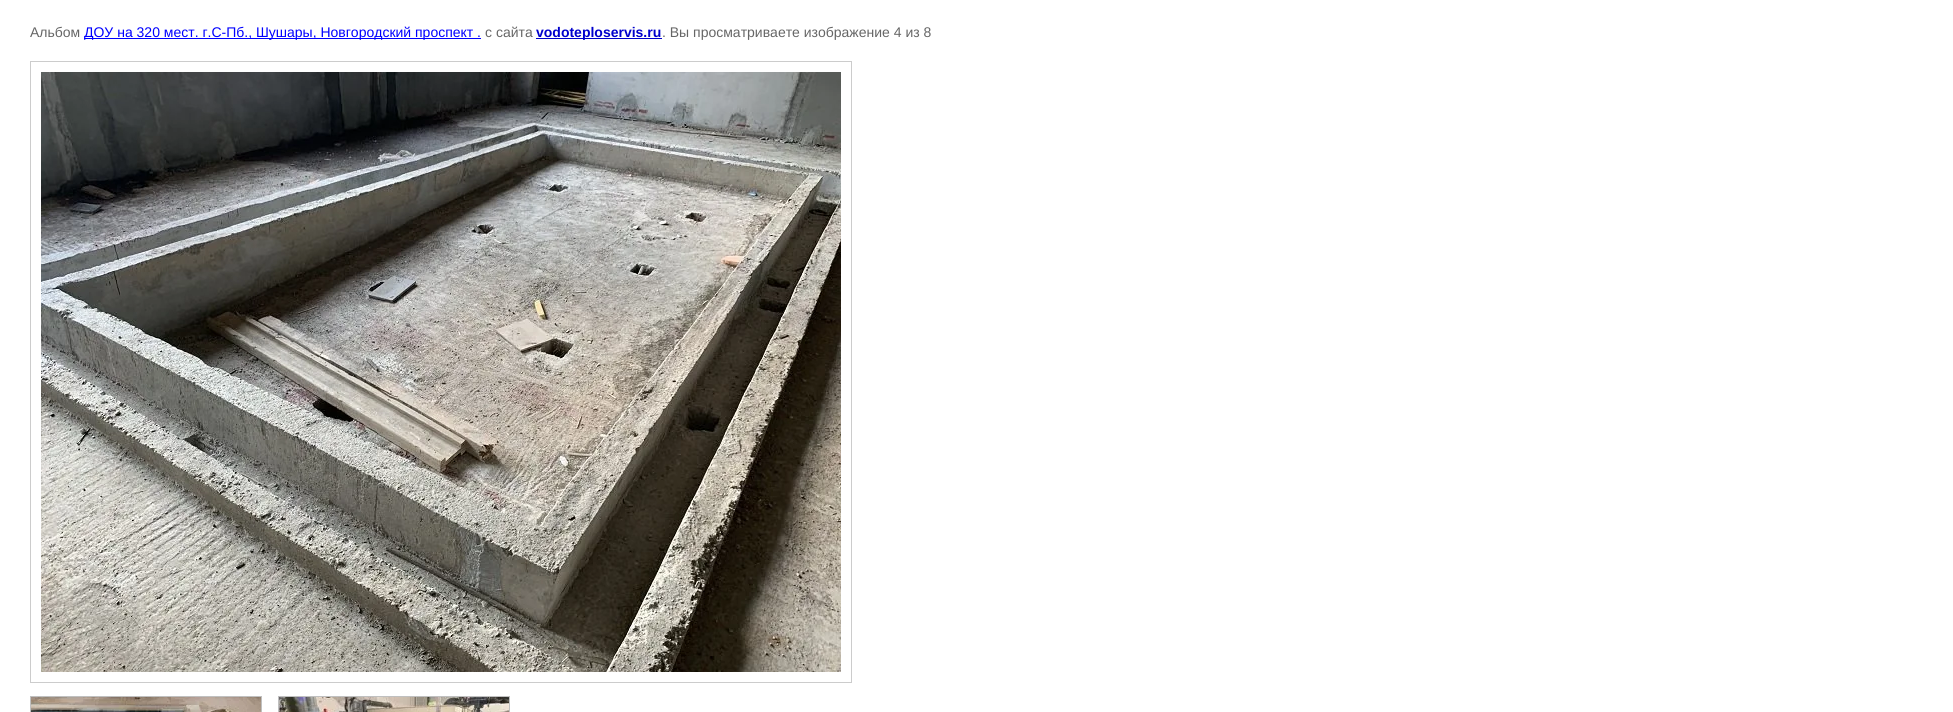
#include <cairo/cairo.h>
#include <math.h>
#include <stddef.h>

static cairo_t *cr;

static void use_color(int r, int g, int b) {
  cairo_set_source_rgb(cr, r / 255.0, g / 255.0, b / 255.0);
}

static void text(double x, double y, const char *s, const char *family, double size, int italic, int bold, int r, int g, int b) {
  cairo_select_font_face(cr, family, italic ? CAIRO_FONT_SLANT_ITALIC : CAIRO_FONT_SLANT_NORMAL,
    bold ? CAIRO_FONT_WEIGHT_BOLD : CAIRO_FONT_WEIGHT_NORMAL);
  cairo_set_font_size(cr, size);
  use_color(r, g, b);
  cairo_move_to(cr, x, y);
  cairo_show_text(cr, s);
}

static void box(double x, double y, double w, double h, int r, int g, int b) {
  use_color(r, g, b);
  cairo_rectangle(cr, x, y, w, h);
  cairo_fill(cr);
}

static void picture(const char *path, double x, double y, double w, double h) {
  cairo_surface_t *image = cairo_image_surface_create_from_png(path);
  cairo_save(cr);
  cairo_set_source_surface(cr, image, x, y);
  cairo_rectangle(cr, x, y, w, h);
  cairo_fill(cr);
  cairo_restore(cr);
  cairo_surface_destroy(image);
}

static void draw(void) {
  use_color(255, 255, 255);
  cairo_paint(cr);
  box(84, 38, 397, 1, 0, 0, 255);
  box(536, 38, 126, 1, 0, 0, 204);
  cairo_rectangle(cr, 30.5, 61.5, 821, 621);
  use_color(204, 204, 204);
  cairo_set_line_width(cr, 1);
  cairo_stroke(cr);
  picture("img_01.png", 41, 72, 800, 600);
  cairo_rectangle(cr, 30.5, 696.5, 231, 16);
  use_color(192, 192, 192);
  cairo_stroke(cr);
  picture("img_02.png", 31, 697, 230, 15);
  cairo_rectangle(cr, 278.5, 696.5, 231, 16);
  cairo_stroke(cr);
  picture("img_03.png", 279, 697, 230, 15);
  text(30, 37, "Альбом", "Liberation Sans", 14, 0, 0, 102, 102, 102);
  text(84, 37, "ДОУ на 320 мест. г.С-Пб., Шушары, Новгородский проспект .", "Liberation Sans", 14, 0, 0, 0, 0, 255);
  text(485, 37, "с сайта", "Liberation Sans", 14, 0, 0, 102, 102, 102);
  text(536, 37, "vodoteploservis.ru", "Liberation Sans", 14, 0, 1, 0, 0, 204);
  text(662, 37, ". Вы просматриваете изображение 4 из 8", "Liberation Sans", 14, 0, 0, 102, 102, 102);
}

int main(void) {
  cairo_surface_t *surface = cairo_image_surface_create(CAIRO_FORMAT_RGB24, 1953, 712);
  cr = cairo_create(surface);
  cairo_font_options_t *options = cairo_font_options_create();
  cairo_font_options_set_hint_metrics(options, CAIRO_HINT_METRICS_OFF);
  cairo_font_options_set_hint_style(options, CAIRO_HINT_STYLE_NONE);
  cairo_set_font_options(cr, options);
  cairo_set_miter_limit(cr, 4);
  draw();
  cairo_surface_write_to_png(surface, "out.png");
  cairo_font_options_destroy(options);
  cairo_destroy(cr);
  cairo_surface_destroy(surface);
  return 0;
}
